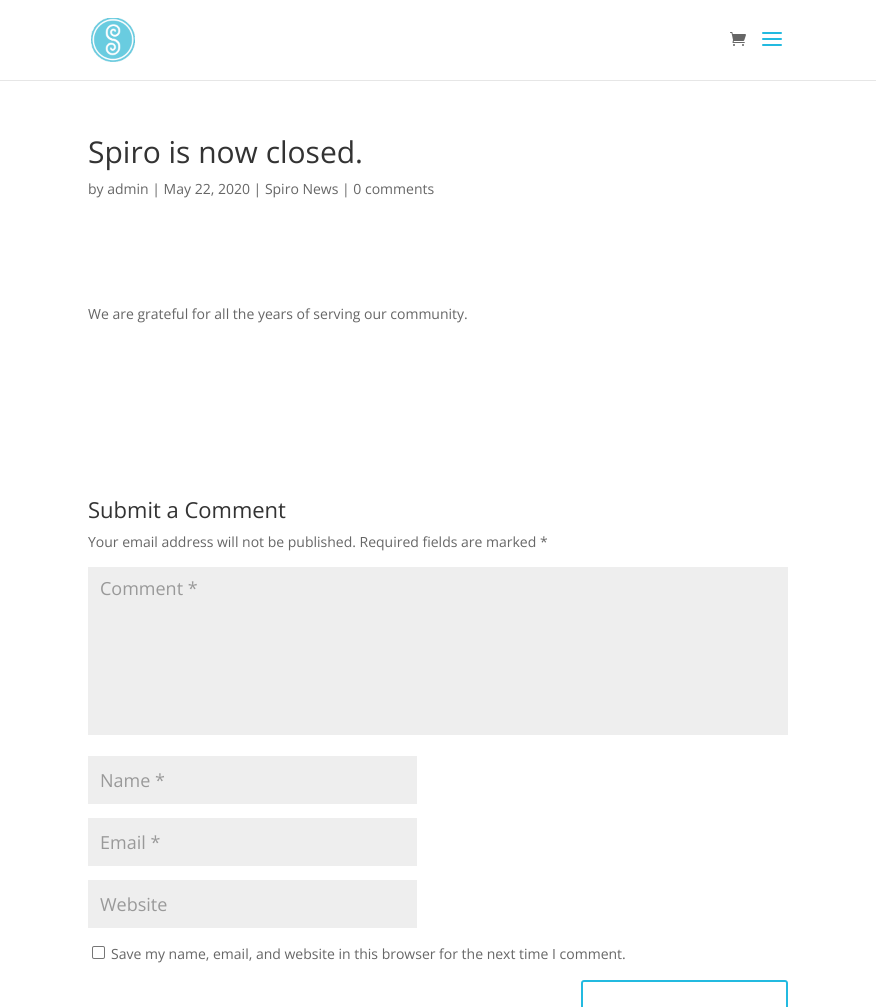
#include <cairo/cairo.h>
#include <math.h>
#include <stddef.h>

static cairo_t *cr;

static void use_color(int r, int g, int b) {
  cairo_set_source_rgb(cr, r / 255.0, g / 255.0, b / 255.0);
}

static void text(double x, double y, const char *s, const char *family, double size, int italic, int bold, int r, int g, int b) {
  cairo_select_font_face(cr, family, italic ? CAIRO_FONT_SLANT_ITALIC : CAIRO_FONT_SLANT_NORMAL,
    bold ? CAIRO_FONT_WEIGHT_BOLD : CAIRO_FONT_WEIGHT_NORMAL);
  cairo_set_font_size(cr, size);
  use_color(r, g, b);
  cairo_move_to(cr, x, y);
  cairo_show_text(cr, s);
}

static void box(double x, double y, double w, double h, int r, int g, int b) {
  use_color(r, g, b);
  cairo_rectangle(cr, x, y, w, h);
  cairo_fill(cr);
}

static void round_rect(double x, double y, double w, double h, double r) {
  cairo_new_sub_path(cr);
  cairo_arc(cr, x + w - r, y + h - r, r, 0, M_PI / 2);
  cairo_arc(cr, x + r, y + h - r, r, M_PI / 2, M_PI);
  cairo_arc(cr, x + r, y + r, r, M_PI, 1.5 * M_PI);
  cairo_arc(cr, x + w - r, y + r, r, 1.5 * M_PI, 2 * M_PI);
  cairo_close_path(cr);
}

static void picture(const char *path, double x, double y, double w, double h) {
  cairo_surface_t *image = cairo_image_surface_create_from_png(path);
  cairo_save(cr);
  cairo_set_source_surface(cr, image, x, y);
  cairo_rectangle(cr, x, y, w, h);
  cairo_fill(cr);
  cairo_restore(cr);
  cairo_surface_destroy(image);
}

static void draw(void) {
  use_color(255, 255, 255);
  cairo_paint(cr);
  box(0, 80, 876, 1, 230, 230, 230);
  picture("img_01.png", 91, 18, 44, 44);
  picture("img_02.png", 730, 32, 16, 14);
  picture("img_03.png", 762, 32, 20, 14);
  box(88, 567, 700, 168, 238, 238, 238);
  box(88, 756, 329, 48, 238, 238, 238);
  box(88, 818, 329, 48, 238, 238, 238);
  box(88, 880, 329, 48, 238, 238, 238);
  round_rect(92.5, 946.5, 12, 12, 1.5);
  use_color(118, 118, 118);
  cairo_set_line_width(cr, 1);
  cairo_stroke(cr);
  round_rect(582, 981, 205, 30, 2);
  use_color(35, 186, 224);
  cairo_set_line_width(cr, 2);
  cairo_stroke(cr);
  text(88, 163, "Spiro is now closed.", "Open Sans", 30, 0, 0, 51, 51, 51);
  text(88, 194, "by admin | May 22, 2020 | Spiro News | 0 comments", "Open Sans", 14, 0, 0, 102, 102, 102);
  text(88, 319, "We are grateful for all the years of serving our community.", "Open Sans", 14, 0, 0, 102, 102, 102);
  text(88, 518, "Submit a Comment", "Open Sans", 22, 0, 0, 51, 51, 51);
  text(88, 547, "Your email address will not be published. Required fields are marked *", "Open Sans", 14, 0, 0, 102, 102, 102);
  text(100, 595, "Comment *", "Open Sans", 18, 0, 0, 153, 153, 153);
  text(100, 787, "Name *", "Open Sans", 18, 0, 0, 153, 153, 153);
  text(100, 849, "Email *", "Open Sans", 18, 0, 0, 153, 153, 153);
  text(100, 911, "Website", "Open Sans", 18, 0, 0, 153, 153, 153);
  text(111, 959, "Save my name, email, and website in this browser for the next time I comment.", "Open Sans", 14, 0, 0, 102, 102, 102);
}

int main(void) {
  cairo_surface_t *surface = cairo_image_surface_create(CAIRO_FORMAT_RGB24, 876, 1007);
  cr = cairo_create(surface);
  cairo_font_options_t *options = cairo_font_options_create();
  cairo_font_options_set_hint_metrics(options, CAIRO_HINT_METRICS_OFF);
  cairo_font_options_set_hint_style(options, CAIRO_HINT_STYLE_NONE);
  cairo_set_font_options(cr, options);
  cairo_set_miter_limit(cr, 4);
  draw();
  cairo_surface_write_to_png(surface, "out.png");
  cairo_font_options_destroy(options);
  cairo_destroy(cr);
  cairo_surface_destroy(surface);
  return 0;
}
